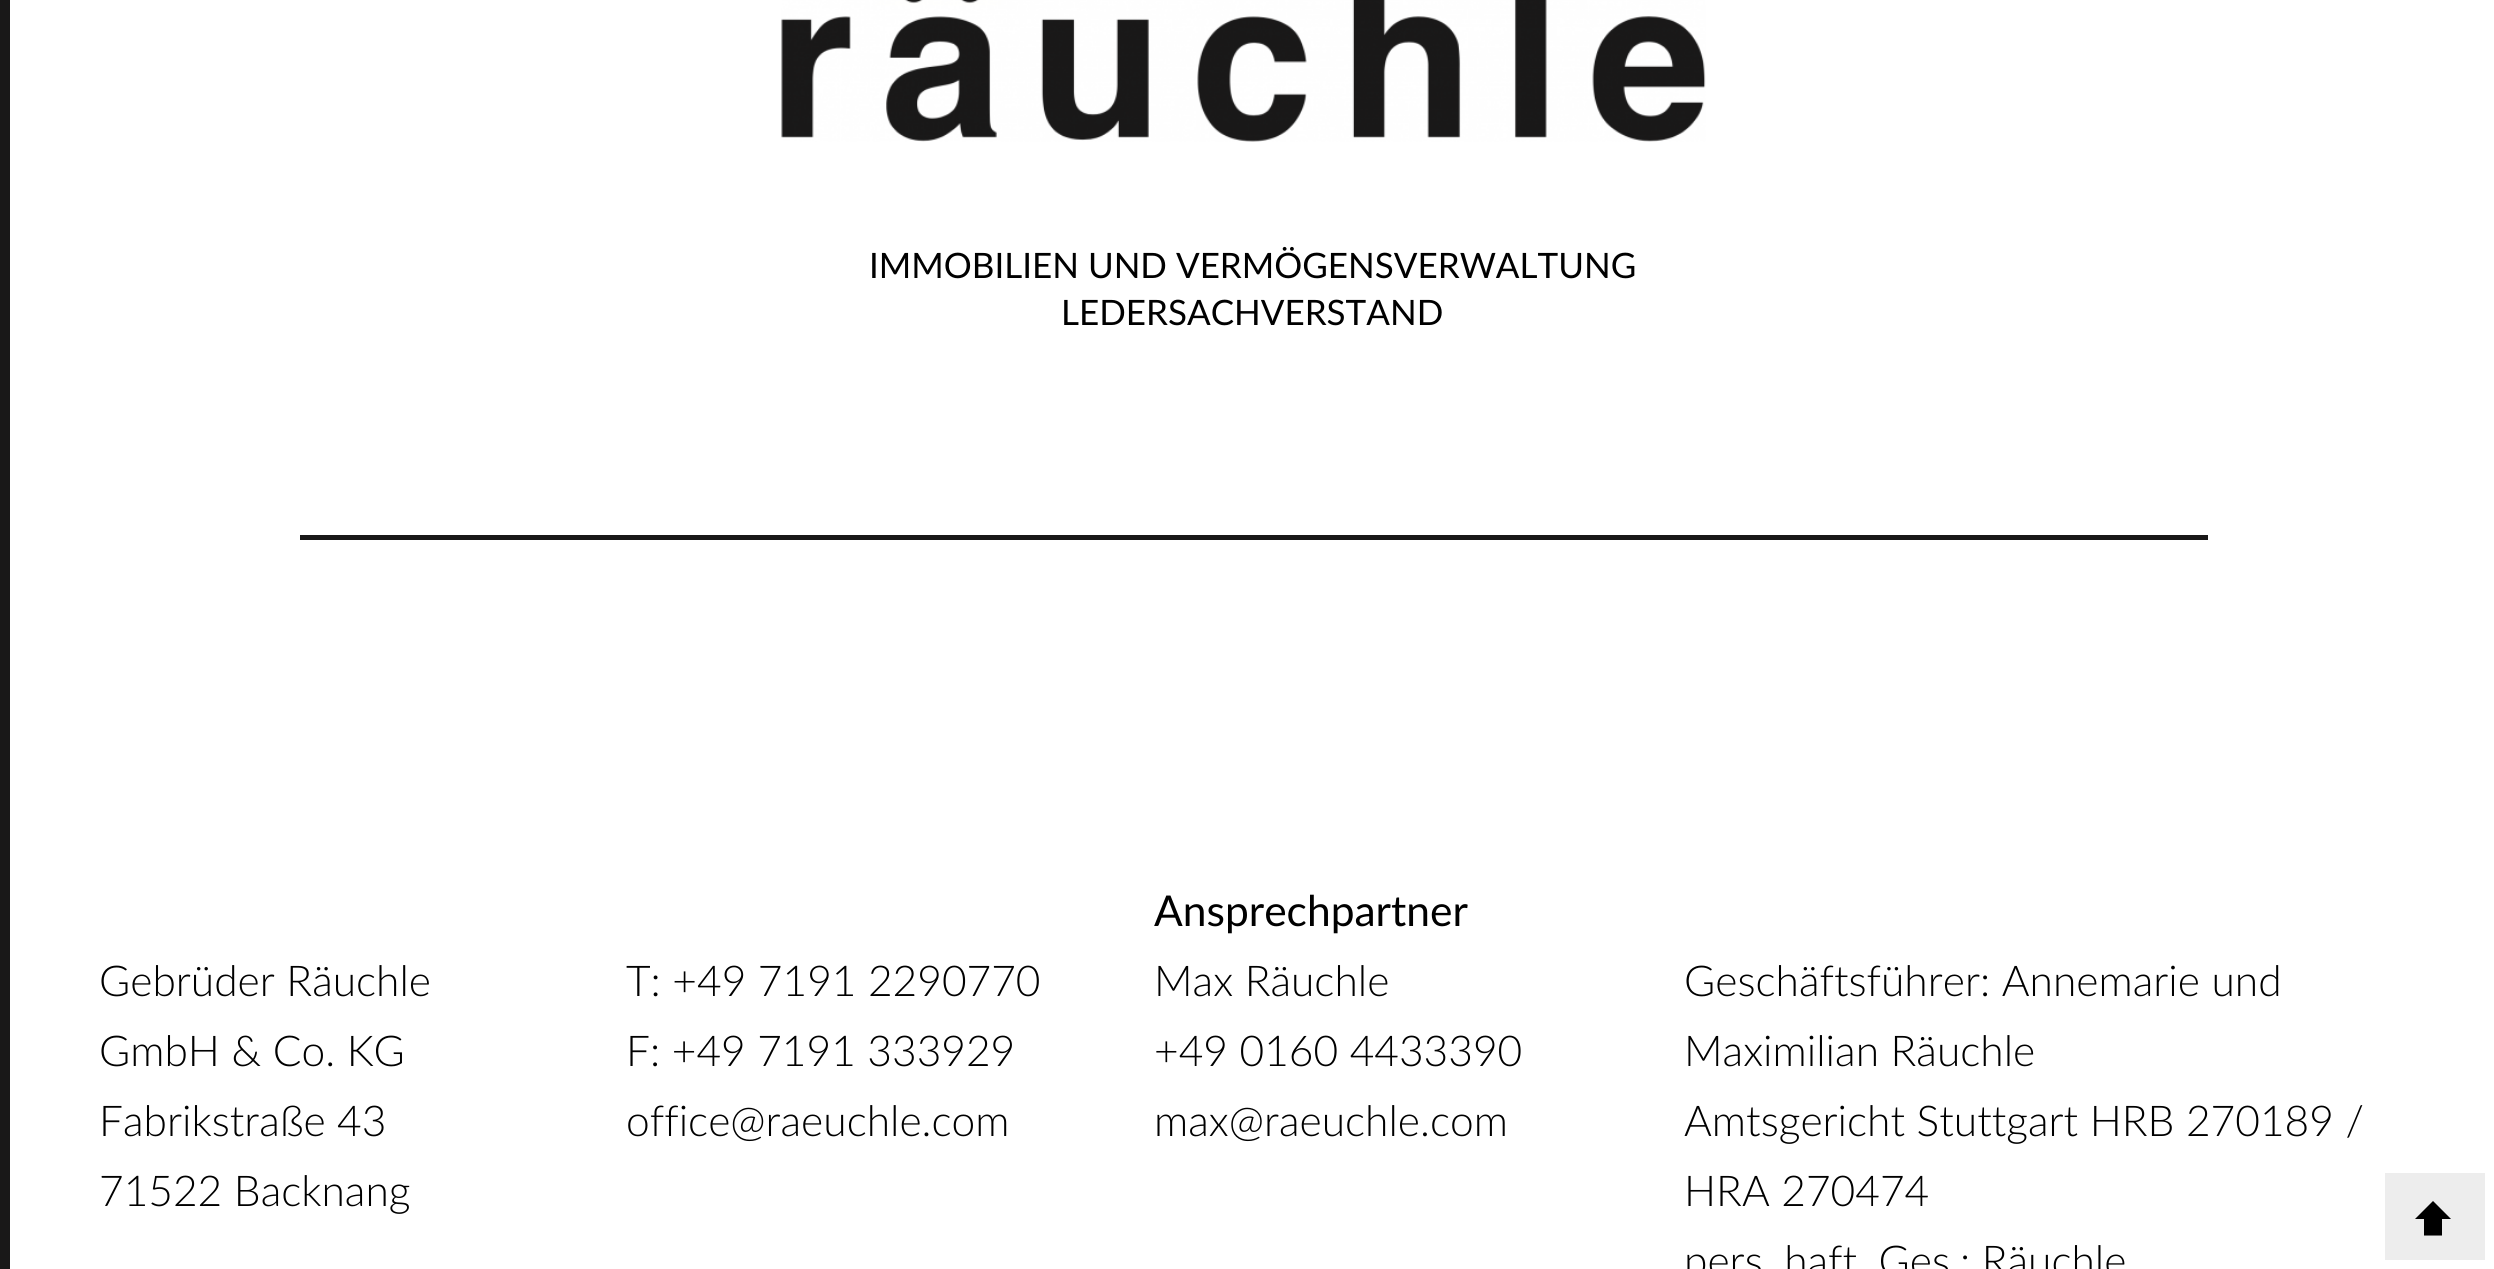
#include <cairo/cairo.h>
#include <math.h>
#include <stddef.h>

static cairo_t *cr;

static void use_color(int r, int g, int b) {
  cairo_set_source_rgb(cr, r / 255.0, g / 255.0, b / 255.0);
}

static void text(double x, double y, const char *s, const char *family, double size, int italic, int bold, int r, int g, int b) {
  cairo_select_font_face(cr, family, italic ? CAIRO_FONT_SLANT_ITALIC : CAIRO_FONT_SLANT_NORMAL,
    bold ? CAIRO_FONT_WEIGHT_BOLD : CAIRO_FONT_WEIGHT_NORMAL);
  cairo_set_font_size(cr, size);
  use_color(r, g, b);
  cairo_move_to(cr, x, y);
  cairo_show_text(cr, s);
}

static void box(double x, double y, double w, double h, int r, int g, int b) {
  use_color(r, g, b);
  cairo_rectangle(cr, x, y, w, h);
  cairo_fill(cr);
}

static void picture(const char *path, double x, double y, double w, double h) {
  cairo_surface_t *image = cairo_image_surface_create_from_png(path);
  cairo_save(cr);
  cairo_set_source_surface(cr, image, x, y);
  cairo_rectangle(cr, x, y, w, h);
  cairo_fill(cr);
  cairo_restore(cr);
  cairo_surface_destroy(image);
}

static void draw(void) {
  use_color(255, 255, 255);
  cairo_paint(cr);
  box(0, 0, 10, 1269, 25, 24, 24);
  picture("img_01.png", 781, 0, 925, 142);
  box(2385, 1173, 100, 87, 237, 237, 237);
  use_color(0, 0, 0);
  cairo_new_path(cr);
  cairo_move_to(cr, 2451, 1219);
  cairo_line_to(cr, 2442, 1219);
  cairo_line_to(cr, 2442, 1235.5);
  cairo_line_to(cr, 2424, 1235.5);
  cairo_line_to(cr, 2424, 1219);
  cairo_line_to(cr, 2415, 1219);
  cairo_line_to(cr, 2433, 1201);
  cairo_close_path(cr);
  cairo_fill(cr);
  box(300, 535, 1908, 5, 25, 24, 24);
  text(869, 278, "IMMOBILIEN UND VERMÖGENSVERWALTUNG", "Lato", 35, 0, 0, 0, 0, 0);
  text(1061, 325, "LEDERSACHVERSTAND", "Lato", 35, 0, 0, 0, 0, 0);
  text(99, 996, "Gebrüder Räuchle", "Lato Light", 42.5, 0, 0, 0, 0, 0);
  text(99, 1066, "GmbH & Co. KG", "Lato Light", 42.5, 0, 0, 0, 0, 0);
  text(99, 1136, "Fabrikstraße 43", "Lato Light", 42.5, 0, 0, 0, 0, 0);
  text(99, 1206, "71522 Backnang", "Lato Light", 42.5, 0, 0, 0, 0, 0);
  text(626, 996, "T: +49 7191 2290770", "Lato Light", 42.5, 0, 0, 0, 0, 0);
  text(626, 1066, "F: +49 7191 333929", "Lato Light", 42.5, 0, 0, 0, 0, 0);
  text(626, 1136, "office@raeuchle.com", "Lato Light", 42.5, 0, 0, 0, 0, 0);
  text(1154, 926, "Ansprechpartner", "Lato", 42.5, 0, 0, 0, 0, 0);
  text(1154, 996, "Max Räuchle", "Lato Light", 42.5, 0, 0, 0, 0, 0);
  text(1154, 1066, "+49 0160 4433390", "Lato Light", 42.5, 0, 0, 0, 0, 0);
  text(1154, 1136, "max@raeuchle.com", "Lato Light", 42.5, 0, 0, 0, 0, 0);
  text(1684, 996, "Geschäftsführer: Annemarie und", "Lato Light", 42.5, 0, 0, 0, 0, 0);
  text(1684, 1066, "Maximilian Räuchle", "Lato Light", 42.5, 0, 0, 0, 0, 0);
  text(1684, 1136, "Amtsgericht Stuttgart HRB 270189 /", "Lato Light", 42.5, 0, 0, 0, 0, 0);
  text(1684, 1206, "HRA 270474", "Lato Light", 42.5, 0, 0, 0, 0, 0);
  text(1684, 1276, "pers. haft. Ges.: Räuchle", "Lato Light", 42.5, 0, 0, 0, 0, 0);
}

int main(void) {
  cairo_surface_t *surface = cairo_image_surface_create(CAIRO_FORMAT_RGB24, 2494, 1269);
  cr = cairo_create(surface);
  cairo_font_options_t *options = cairo_font_options_create();
  cairo_font_options_set_hint_metrics(options, CAIRO_HINT_METRICS_OFF);
  cairo_font_options_set_hint_style(options, CAIRO_HINT_STYLE_NONE);
  cairo_set_font_options(cr, options);
  cairo_set_miter_limit(cr, 4);
  draw();
  cairo_surface_write_to_png(surface, "out.png");
  cairo_font_options_destroy(options);
  cairo_destroy(cr);
  cairo_surface_destroy(surface);
  return 0;
}
